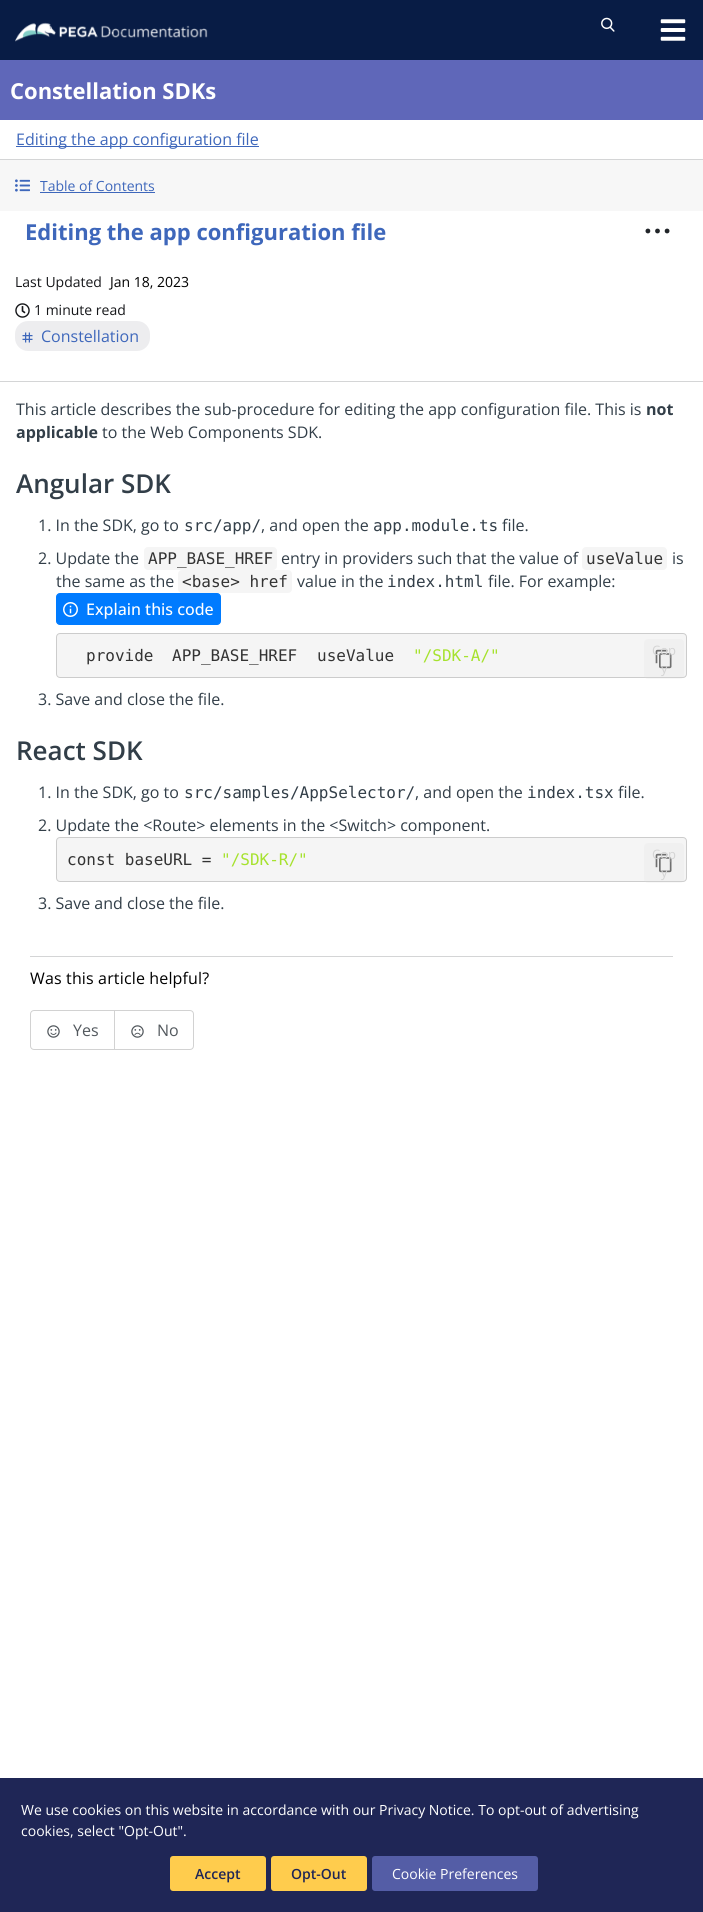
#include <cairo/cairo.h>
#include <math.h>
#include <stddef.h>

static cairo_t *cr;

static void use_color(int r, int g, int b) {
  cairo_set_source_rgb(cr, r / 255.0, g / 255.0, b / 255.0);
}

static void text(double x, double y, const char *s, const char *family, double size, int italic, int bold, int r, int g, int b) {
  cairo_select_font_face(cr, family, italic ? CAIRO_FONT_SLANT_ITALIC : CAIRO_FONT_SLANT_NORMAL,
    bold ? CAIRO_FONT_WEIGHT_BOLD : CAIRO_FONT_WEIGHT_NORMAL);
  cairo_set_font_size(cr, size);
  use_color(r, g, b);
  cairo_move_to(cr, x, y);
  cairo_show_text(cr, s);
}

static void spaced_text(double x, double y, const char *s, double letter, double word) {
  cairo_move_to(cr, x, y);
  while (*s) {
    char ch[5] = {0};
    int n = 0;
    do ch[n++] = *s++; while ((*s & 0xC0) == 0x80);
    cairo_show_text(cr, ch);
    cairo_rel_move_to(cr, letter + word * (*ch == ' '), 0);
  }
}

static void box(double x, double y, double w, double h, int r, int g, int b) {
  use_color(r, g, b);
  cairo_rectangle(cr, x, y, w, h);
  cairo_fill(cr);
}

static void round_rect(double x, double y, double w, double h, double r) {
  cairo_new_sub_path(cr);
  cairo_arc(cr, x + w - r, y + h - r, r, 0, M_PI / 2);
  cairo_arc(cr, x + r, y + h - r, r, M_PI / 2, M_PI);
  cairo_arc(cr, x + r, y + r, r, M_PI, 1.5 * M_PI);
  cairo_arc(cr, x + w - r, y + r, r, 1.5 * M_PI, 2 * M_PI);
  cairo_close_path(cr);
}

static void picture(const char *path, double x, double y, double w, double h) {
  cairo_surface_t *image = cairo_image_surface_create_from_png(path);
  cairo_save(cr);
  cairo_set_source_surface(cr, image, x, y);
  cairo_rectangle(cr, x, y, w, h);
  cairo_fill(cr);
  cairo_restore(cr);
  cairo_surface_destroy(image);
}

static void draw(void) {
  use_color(255, 255, 255);
  cairo_paint(cr);
  box(0, 0, 703, 60, 8, 28, 69);
  picture("img_01.png", 15, 22, 193, 20);
  picture("img_02.png", 601, 17, 14, 15);
  picture("img_03.png", 660, 19, 26, 22);
  box(0, 60, 703, 60, 95, 103, 185);
  box(0, 159, 703, 1, 212, 213, 214);
  box(16, 146, 243, 1, 62, 103, 187);
  box(0, 160, 703, 51, 247, 247, 247);
  picture("img_04.png", 15, 179, 15, 13);
  box(40, 192, 115, 1, 62, 103, 187);
  box(0, 381, 703, 1, 212, 213, 214);
  use_color(33, 37, 41);
  cairo_arc(cr, 647.9, 231, 2.4, 0, 2 * M_PI);
  cairo_fill(cr);
  cairo_arc(cr, 657.5, 231, 2.4, 0, 2 * M_PI);
  cairo_fill(cr);
  cairo_arc(cr, 667.1, 231, 2.4, 0, 2 * M_PI);
  cairo_fill(cr);
  picture("img_05.png", 15, 303, 15, 15);
  use_color(237, 237, 239);
  round_rect(15, 321, 135, 30, 13);
  cairo_fill(cr);
  picture("img_06.png", 22, 332, 11, 11);
  use_color(245, 245, 245);
  round_rect(144, 547, 133, 23, 4);
  cairo_fill(cr);
  round_rect(582, 547, 85, 23, 4);
  cairo_fill(cr);
  round_rect(178, 570, 114, 23, 4);
  cairo_fill(cr);
  use_color(0, 123, 255);
  round_rect(56.5, 593.5, 164, 31, 3.5);
  cairo_fill_preserve(cr);
  cairo_set_line_width(cr, 1);
  cairo_stroke(cr);
  picture("img_07.png", 63, 602, 15, 15);
  use_color(245, 245, 245);
  round_rect(56.5, 633.5, 630, 44, 3.5);
  cairo_fill_preserve(cr);
  use_color(204, 204, 204);
  cairo_stroke(cr);
  cairo_set_source_rgba(cr, 0.878, 0.878, 0.878, 0.2);
  round_rect(644, 639, 40, 40, 4);
  cairo_fill(cr);
  picture("img_08.png", 655, 649, 17, 20);
  use_color(245, 245, 245);
  round_rect(56.5, 837.5, 630, 44, 3.5);
  cairo_fill_preserve(cr);
  use_color(204, 204, 204);
  cairo_stroke(cr);
  cairo_set_source_rgba(cr, 0.878, 0.878, 0.878, 0.2);
  round_rect(644, 843, 40, 40, 4);
  cairo_fill(cr);
  picture("img_08.png", 655, 853, 17, 20);
  box(30, 956, 643, 1, 212, 213, 214);
  round_rect(30.5, 1010.5, 163, 39, 3.5);
  use_color(210, 210, 210);
  cairo_stroke(cr);
  box(114, 1011, 1, 38, 210, 210, 210);
  picture("img_09.png", 47, 1025, 13, 13);
  picture("img_10.png", 131, 1025, 13, 13);
  box(0, 1778, 703, 134, 31, 38, 86);
  use_color(255, 204, 77);
  round_rect(170, 1856, 96, 35, 3);
  cairo_fill(cr);
  round_rect(271, 1856, 96, 35, 3);
  cairo_fill(cr);
  use_color(84, 93, 166);
  round_rect(372, 1856, 166, 35, 3);
  cairo_fill(cr);
  text(10, 99, "Constellation SDKs", "Open Sans", 22, 0, 1, 255, 255, 255);
  text(16, 145, "Editing the app configuration file", "Open Sans", 16, 0, 0, 62, 103, 187);
  text(40, 191, "Table of Contents", "Open Sans", 14, 0, 0, 62, 103, 187);
  text(25, 240, "Editing the app configuration file", "Open Sans", 22, 0, 1, 62, 103, 187);
  text(15, 287, "Last Updated", "Open Sans", 14, 0, 0, 21, 22, 25);
  text(110, 287, "Jan 18, 2023", "Open Sans", 14, 0, 0, 0, 0, 0);
  text(34, 315, "1 minute read", "Open Sans", 14, 0, 0, 21, 22, 25);
  text(41, 342, "Constellation", "Open Sans", 16, 0, 0, 62, 103, 187);
  text(16, 415, "This article describes the sub-procedure for editing the app configuration file. This is", "Open Sans", 16, 0, 0, 50, 62, 72);
  text(646, 415, "not", "Open Sans", 16, 0, 1, 50, 62, 72);
  text(16, 438, "applicable", "Open Sans", 16, 0, 1, 50, 62, 72);
  text(102, 438, "to the Web Components SDK.", "Open Sans", 16, 0, 0, 50, 62, 72);
  text(16, 493, "Angular SDK", "Open Sans SemiBold", 26, 0, 0, 50, 62, 72);
  text(38, 531, "1. In the SDK, go to", "Open Sans", 16, 0, 0, 50, 62, 72);
  text(184, 531, "src/app/", "DejaVu Sans Mono", 16, 0, 0, 50, 62, 72);
  text(261, 531, ", and open the", "Open Sans", 16, 0, 0, 50, 62, 72);
  text(373, 531, "app.module.ts", "DejaVu Sans Mono", 16, 0, 0, 50, 62, 72);
  text(502, 531, "file.", "Open Sans", 16, 0, 0, 50, 62, 72);
  text(38, 564, "2. Update the", "Open Sans", 16, 0, 0, 50, 62, 72);
  text(148, 564, "APP_BASE_HREF", "DejaVu Sans Mono", 16, 0, 0, 51, 51, 51);
  text(281, 564, "entry in providers such that the value of", "Open Sans", 16, 0, 0, 50, 62, 72);
  text(586, 564, "useValue", "DejaVu Sans Mono", 16, 0, 0, 51, 51, 51);
  text(672, 564, "is", "Open Sans", 16, 0, 0, 50, 62, 72);
  text(56, 587, "the same as the", "Open Sans", 16, 0, 0, 50, 62, 72);
  text(182, 587, "<base> href", "DejaVu Sans Mono", 16, 0, 0, 51, 51, 51);
  text(297, 587, "value in the", "Open Sans", 16, 0, 0, 50, 62, 72);
  text(387, 587, "index.html", "DejaVu Sans Mono", 16, 0, 0, 50, 62, 72);
  text(488, 587, "file. For example:", "Open Sans", 16, 0, 0, 50, 62, 72);
  text(86, 615, "Explain this code", "Open Sans Medium", 16, 0, 0, 255, 255, 255);
  text(86, 661, "provide", "DejaVu Sans Mono", 16, 0, 0, 51, 51, 51);
  text(172, 661, "APP_BASE_HREF", "DejaVu Sans Mono", 16, 0, 0, 51, 51, 51);
  text(317, 661, "useValue", "DejaVu Sans Mono", 16, 0, 0, 51, 51, 51);
  text(413, 661, "\"/SDK-A/\"", "DejaVu Sans Mono", 16, 0, 0, 166, 226, 46);
  text(652, 655, "Cop", "Open Sans", 13, 0, 0, 212, 212, 212);
  text(661, 673, "y", "Open Sans", 13, 0, 0, 212, 212, 212);
  text(38, 705, "3. Save and close the file.", "Open Sans", 16, 0, 0, 50, 62, 72);
  text(16, 760, "React SDK", "Open Sans SemiBold", 26, 0, 0, 50, 62, 72);
  text(38, 798, "1. In the SDK, go to", "Open Sans", 16, 0, 0, 50, 62, 72);
  text(184, 798, "src/samples/AppSelector/", "DejaVu Sans Mono", 16, 0, 0, 50, 62, 72);
  text(415, 798, ", and open the", "Open Sans", 16, 0, 0, 50, 62, 72);
  text(527, 798, "index.tsx", "DejaVu Sans Mono", 16, 0, 0, 50, 62, 72);
  text(618, 798, "file.", "Open Sans", 16, 0, 0, 50, 62, 72);
  text(38, 831, "2. Update the <Route> elements in the <Switch> component.", "Open Sans", 16, 0, 0, 50, 62, 72);
  text(67, 865, "const baseURL =", "DejaVu Sans Mono", 16, 0, 0, 51, 51, 51);
  text(221, 865, "\"/SDK-R/\"", "DejaVu Sans Mono", 16, 0, 0, 166, 226, 46);
  text(652, 859, "Cop", "Open Sans", 13, 0, 0, 212, 212, 212);
  text(661, 877, "y", "Open Sans", 13, 0, 0, 212, 212, 212);
  text(38, 909, "3. Save and close the file.", "Open Sans", 16, 0, 0, 50, 62, 72);
  use_color(0, 0, 0);
  spaced_text(30, 984, "Was this article helpful?", 0.15, 0);
  text(73, 1036, "Yes", "Open Sans", 16, 0, 0, 82, 88, 93);
  text(157, 1036, "No", "Open Sans", 16, 0, 0, 82, 88, 93);
  text(21, 1815, "We use cookies on this website in accordance with our Privacy Notice. To opt-out of advertising", "Open Sans", 14, 0, 0, 255, 255, 255);
  text(21, 1836, "cookies, select \"Opt-Out\".", "Open Sans", 14, 0, 0, 255, 255, 255);
  text(195, 1879, "Accept", "Open Sans SemiBold", 14, 0, 0, 31, 38, 86);
  text(291, 1879, "Opt-Out", "Open Sans SemiBold", 14, 0, 0, 31, 38, 86);
  text(392, 1879, "Cookie Preferences", "Open Sans", 14, 0, 0, 255, 255, 255);
}

int main(void) {
  cairo_surface_t *surface = cairo_image_surface_create(CAIRO_FORMAT_RGB24, 703, 1912);
  cr = cairo_create(surface);
  cairo_font_options_t *options = cairo_font_options_create();
  cairo_font_options_set_hint_metrics(options, CAIRO_HINT_METRICS_OFF);
  cairo_font_options_set_hint_style(options, CAIRO_HINT_STYLE_NONE);
  cairo_set_font_options(cr, options);
  cairo_set_miter_limit(cr, 4);
  draw();
  cairo_surface_write_to_png(surface, "out.png");
  cairo_font_options_destroy(options);
  cairo_destroy(cr);
  cairo_surface_destroy(surface);
  return 0;
}
